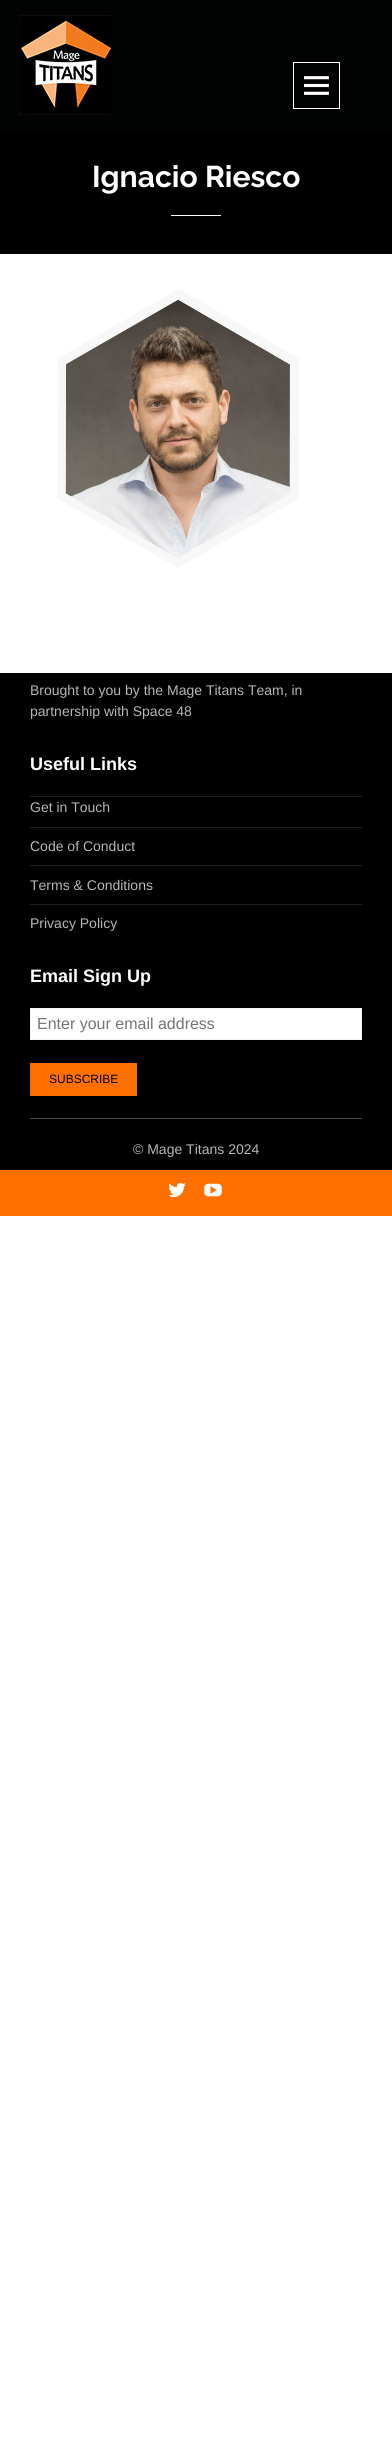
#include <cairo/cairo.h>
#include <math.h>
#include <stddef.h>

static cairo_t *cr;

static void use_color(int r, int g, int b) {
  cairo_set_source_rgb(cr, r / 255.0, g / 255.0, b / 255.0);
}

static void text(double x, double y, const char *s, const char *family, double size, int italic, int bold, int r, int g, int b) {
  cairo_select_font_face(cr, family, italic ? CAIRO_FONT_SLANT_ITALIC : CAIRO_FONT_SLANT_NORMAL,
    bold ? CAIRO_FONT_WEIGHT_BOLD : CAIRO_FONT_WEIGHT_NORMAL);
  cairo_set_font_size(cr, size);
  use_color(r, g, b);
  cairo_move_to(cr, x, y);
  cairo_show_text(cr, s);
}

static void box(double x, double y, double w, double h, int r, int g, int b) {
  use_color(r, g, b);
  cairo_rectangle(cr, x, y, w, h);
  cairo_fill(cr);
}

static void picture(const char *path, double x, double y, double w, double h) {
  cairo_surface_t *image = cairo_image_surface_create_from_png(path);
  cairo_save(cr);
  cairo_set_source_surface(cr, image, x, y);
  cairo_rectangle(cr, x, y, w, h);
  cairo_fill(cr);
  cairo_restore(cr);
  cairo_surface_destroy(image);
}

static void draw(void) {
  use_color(255, 255, 255);
  cairo_paint(cr);
  box(0, 0, 392, 130, 2, 3, 3);
  picture("img_01.png", 20, 15, 91, 100);
  cairo_rectangle(cr, 293.5, 62.5, 46, 46);
  use_color(255, 255, 255);
  cairo_set_line_width(cr, 1);
  cairo_stroke(cr);
  picture("img_02.png", 304, 76, 25, 19);
  box(0, 130, 392, 124, 0, 0, 0);
  box(171, 215, 50, 1, 255, 255, 255);
  picture("img_03.png", 57, 289, 242, 279);
  box(0, 673, 392, 497, 0, 0, 0);
  box(30, 796, 332, 1, 32, 32, 32);
  box(30, 827, 332, 1, 32, 32, 32);
  box(30, 865, 332, 1, 32, 32, 32);
  box(30, 904, 332, 1, 32, 32, 32);
  use_color(255, 255, 255);
  cairo_rectangle(cr, 30.5, 1008.5, 331, 31);
  cairo_fill_preserve(cr);
  use_color(245, 244, 244);
  cairo_stroke(cr);
  box(30, 1063, 107, 33, 255, 112, 0);
  box(30, 1118, 332, 1, 73, 73, 73);
  box(0, 1170, 392, 46, 255, 112, 0);
  picture("img_04.png", 168, 1182, 18, 16);
  picture("img_05.png", 204, 1183, 18, 14);
  text(92, 187, "Ignacio Riesco", "Raleway", 30, 0, 1, 255, 255, 255);
  text(30, 695, "Brought to you by the Mage Titans Team, in", "Liberation Sans", 14, 0, 0, 182, 182, 179);
  text(30, 716, "partnership with Space 48", "Liberation Sans", 14, 0, 0, 182, 182, 179);
  text(30, 770, "Useful Links", "Liberation Sans", 18, 0, 1, 255, 255, 255);
  text(30, 812, "Get in Touch", "Liberation Sans", 14, 0, 0, 182, 182, 179);
  text(30, 851, "Code of Conduct", "Liberation Sans", 14, 0, 0, 182, 182, 179);
  text(30, 890, "Terms & Conditions", "Liberation Sans", 14, 0, 0, 182, 182, 179);
  text(30, 928, "Privacy Policy", "Liberation Sans", 14, 0, 0, 182, 182, 179);
  text(30, 982, "Email Sign Up", "Liberation Sans", 18, 0, 1, 255, 255, 255);
  text(37, 1029, "Enter your email address", "Liberation Sans", 16, 0, 0, 117, 117, 117);
  text(49, 1083, "SUBSCRIBE", "Liberation Sans", 12, 0, 0, 0, 0, 0);
  text(133, 1154, "© Mage Titans 2024", "Liberation Sans", 14, 0, 0, 182, 182, 179);
}

int main(void) {
  cairo_surface_t *surface = cairo_image_surface_create(CAIRO_FORMAT_RGB24, 392, 2450);
  cr = cairo_create(surface);
  cairo_font_options_t *options = cairo_font_options_create();
  cairo_font_options_set_hint_metrics(options, CAIRO_HINT_METRICS_OFF);
  cairo_font_options_set_hint_style(options, CAIRO_HINT_STYLE_NONE);
  cairo_set_font_options(cr, options);
  cairo_set_miter_limit(cr, 4);
  draw();
  cairo_surface_write_to_png(surface, "out.png");
  cairo_font_options_destroy(options);
  cairo_destroy(cr);
  cairo_surface_destroy(surface);
  return 0;
}
